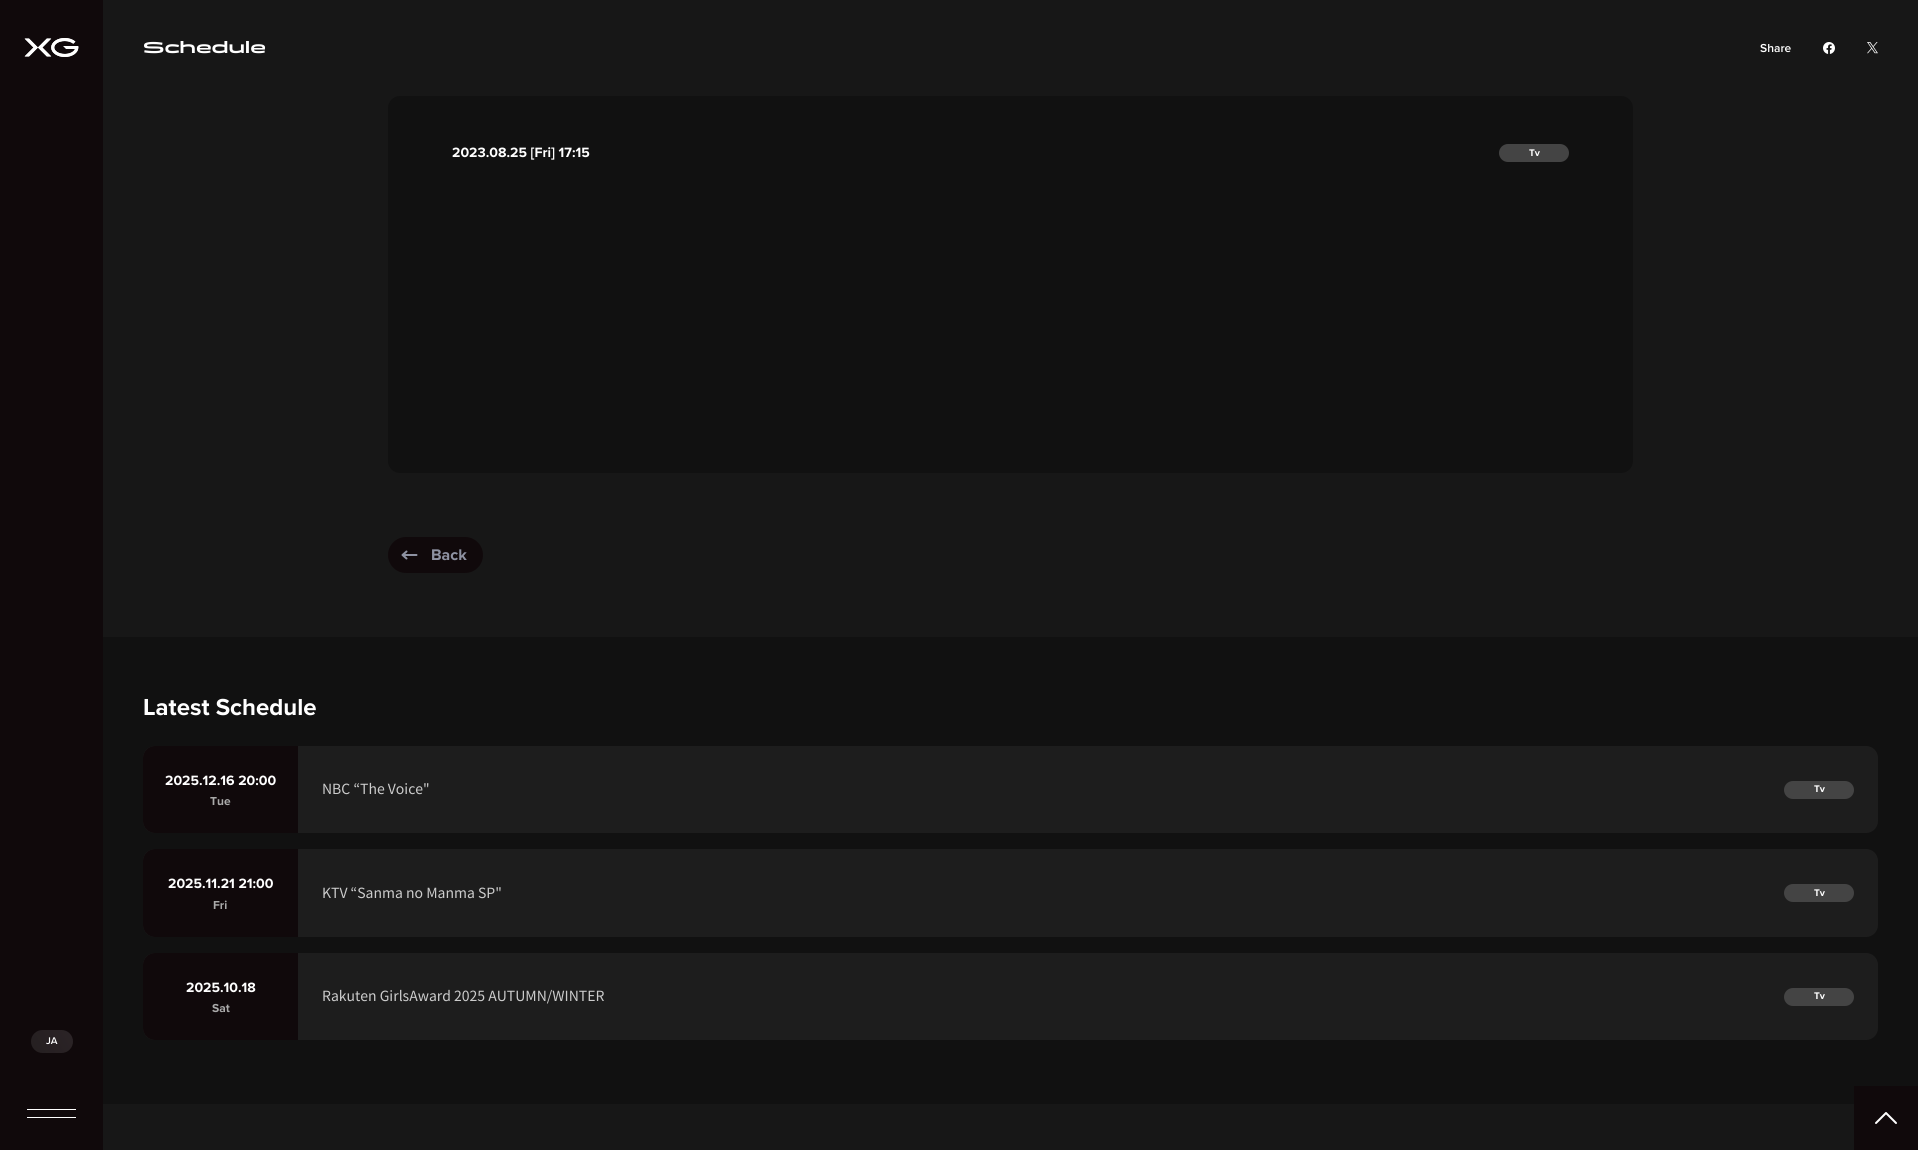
#include <cairo/cairo.h>
#include <math.h>
#include <stddef.h>

static cairo_t *cr;

static void use_color(int r, int g, int b) {
  cairo_set_source_rgb(cr, r / 255.0, g / 255.0, b / 255.0);
}

static void text(double x, double y, const char *s, const char *family, double size, int italic, int bold, int r, int g, int b) {
  cairo_select_font_face(cr, family, italic ? CAIRO_FONT_SLANT_ITALIC : CAIRO_FONT_SLANT_NORMAL,
    bold ? CAIRO_FONT_WEIGHT_BOLD : CAIRO_FONT_WEIGHT_NORMAL);
  cairo_set_font_size(cr, size);
  use_color(r, g, b);
  cairo_move_to(cr, x, y);
  cairo_show_text(cr, s);
}

static void box(double x, double y, double w, double h, int r, int g, int b) {
  use_color(r, g, b);
  cairo_rectangle(cr, x, y, w, h);
  cairo_fill(cr);
}

static void round_rect(double x, double y, double w, double h, double r) {
  cairo_new_sub_path(cr);
  cairo_arc(cr, x + w - r, y + h - r, r, 0, M_PI / 2);
  cairo_arc(cr, x + r, y + h - r, r, M_PI / 2, M_PI);
  cairo_arc(cr, x + r, y + r, r, M_PI, 1.5 * M_PI);
  cairo_arc(cr, x + w - r, y + r, r, 1.5 * M_PI, 2 * M_PI);
  cairo_close_path(cr);
}

static void picture(const char *path, double x, double y, double w, double h) {
  cairo_surface_t *image = cairo_image_surface_create_from_png(path);
  cairo_save(cr);
  cairo_set_source_surface(cr, image, x, y);
  cairo_rectangle(cr, x, y, w, h);
  cairo_fill(cr);
  cairo_restore(cr);
  cairo_surface_destroy(image);
}

static void draw(void) {
  cairo_pattern_t *gradient;
  use_color(23, 23, 23);
  cairo_paint(cr);
  picture("img_01.png", 1823, 42, 12, 12);
  picture("img_02.png", 1867, 42, 11, 12);
  use_color(17, 17, 17);
  round_rect(388, 96, 1245, 377, 12);
  cairo_fill(cr);
  use_color(68, 68, 68);
  round_rect(1499, 144, 70, 18, 9);
  cairo_fill(cr);
  use_color(16, 9, 11);
  round_rect(388, 537, 95, 36, 18);
  cairo_fill(cr);
  cairo_new_path(cr);
  cairo_move_to(cr, 406.5, 551.5);
  cairo_line_to(cr, 402.5, 555);
  cairo_line_to(cr, 406.5, 558.5);
  cairo_move_to(cr, 416.5, 555);
  cairo_line_to(cr, 403.5, 555);
  use_color(142, 146, 162);
  cairo_set_line_cap(cr, CAIRO_LINE_CAP_ROUND);
  cairo_set_line_join(cr, CAIRO_LINE_JOIN_ROUND);
  cairo_stroke(cr);
  box(103, 637, 1815, 467, 17, 17, 17);
  use_color(29, 29, 29);
  round_rect(143, 746, 1735, 87, 12);
  cairo_fill(cr);
  use_color(16, 9, 11);
  cairo_new_path(cr);
  cairo_move_to(cr, 155, 746);
  cairo_line_to(cr, 298, 746);
  cairo_line_to(cr, 298, 833);
  cairo_line_to(cr, 155, 833);
  cairo_curve_to(cr, 148.5, 833, 143, 827.5, 143, 821);
  cairo_line_to(cr, 143, 758);
  cairo_curve_to(cr, 143, 751.5, 148.5, 746, 155, 746);
  cairo_close_path(cr);
  cairo_fill(cr);
  use_color(68, 68, 68);
  round_rect(1784, 781, 70, 18, 9);
  cairo_fill(cr);
  use_color(29, 29, 29);
  round_rect(143, 849, 1735, 88, 12);
  cairo_fill(cr);
  use_color(16, 9, 11);
  cairo_new_path(cr);
  cairo_move_to(cr, 155, 849);
  cairo_line_to(cr, 298, 849);
  cairo_line_to(cr, 298, 937);
  cairo_line_to(cr, 155, 937);
  cairo_curve_to(cr, 148.5, 937, 143, 931.5, 143, 925);
  cairo_line_to(cr, 143, 861);
  cairo_curve_to(cr, 143, 854.5, 148.5, 849, 155, 849);
  cairo_close_path(cr);
  cairo_fill(cr);
  use_color(68, 68, 68);
  round_rect(1784, 884, 70, 18, 9);
  cairo_fill(cr);
  use_color(29, 29, 29);
  round_rect(143, 953, 1735, 87, 12);
  cairo_fill(cr);
  use_color(16, 9, 11);
  cairo_new_path(cr);
  cairo_move_to(cr, 155, 953);
  cairo_line_to(cr, 298, 953);
  cairo_line_to(cr, 298, 1040);
  cairo_line_to(cr, 155, 1040);
  cairo_curve_to(cr, 148.5, 1040, 143, 1034.5, 143, 1028);
  cairo_line_to(cr, 143, 965);
  cairo_curve_to(cr, 143, 958.5, 148.5, 953, 155, 953);
  cairo_close_path(cr);
  cairo_fill(cr);
  use_color(68, 68, 68);
  round_rect(1784, 988, 70, 18, 9);
  cairo_fill(cr);
  box(1854, 1086, 64, 64, 16, 9, 11);
  cairo_new_path(cr);
  cairo_move_to(cr, 1876, 1123);
  cairo_line_to(cr, 1886, 1113);
  cairo_line_to(cr, 1896, 1123);
  use_color(255, 255, 255);
  cairo_stroke(cr);
  box(0, 0, 103, 1150, 16, 9, 11);
  picture("img_03.png", 24, 38, 55, 19);
  picture("img_04.png", 24, 38, 55, 19);
  use_color(33, 26, 28);
  round_rect(31, 1030, 42, 23, 11.5);
  cairo_fill(cr);
  gradient = cairo_pattern_create_linear(73, 1029, 31, 1054);
  cairo_pattern_add_color_stop_rgba(gradient, 0, 0.698, 0.675, 0.71, 0.07);
  cairo_pattern_add_color_stop_rgba(gradient, 1, 0.463, 0.471, 0.514, 0.05);
  cairo_set_source(cr, gradient);
  cairo_pattern_destroy(gradient);
  round_rect(31, 1030, 42, 23, 11.5);
  cairo_fill(cr);
  box(27, 1109, 49, 1, 255, 255, 255);
  box(27, 1117, 49, 1, 255, 255, 255);
  text(143, 53, "Schedule", "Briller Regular", 16, 0, 1, 255, 255, 255);
  text(1760, 52, "Share", "Proxima Nova SemiBold", 12, 0, 0, 255, 255, 255);
  text(452, 157, "2023.08.25 [Fri] 17:15", "Proxima Nova", 14, 0, 1, 255, 255, 255);
  text(1529, 156, "Tv", "Proxima Nova", 10, 0, 1, 255, 255, 255);
  text(431, 560, "Back", "Proxima Nova", 16, 0, 1, 142, 146, 162);
  text(143, 715, "Latest Schedule", "Proxima Nova", 24, 0, 1, 255, 255, 255);
  text(165, 785, "2025.12.16 20:00", "Proxima Nova", 14, 0, 1, 255, 255, 255);
  text(210, 805, "Tue", "Proxima Nova", 12, 0, 1, 170, 170, 170);
  text(322, 794, "NBC “The Voice\"", "Noto Sans JP", 14, 0, 0, 204, 204, 204);
  text(1814, 792, "Tv", "Proxima Nova", 10, 0, 1, 255, 255, 255);
  text(168, 888, "2025.11.21 21:00", "Proxima Nova", 14, 0, 1, 255, 255, 255);
  text(213, 909, "Fri", "Proxima Nova", 12, 0, 1, 170, 170, 170);
  text(322, 898, "KTV “Sanma no Manma SP\"", "Noto Sans JP", 14, 0, 0, 204, 204, 204);
  text(1814, 896, "Tv", "Proxima Nova", 10, 0, 1, 255, 255, 255);
  text(186, 992, "2025.10.18", "Proxima Nova", 14, 0, 1, 255, 255, 255);
  text(212, 1012, "Sat", "Proxima Nova", 12, 0, 1, 170, 170, 170);
  text(322, 1001, "Rakuten GirlsAward 2025 AUTUMN/WINTER", "Noto Sans JP", 14, 0, 0, 204, 204, 204);
  text(1814, 999, "Tv", "Proxima Nova", 10, 0, 1, 255, 255, 255);
  text(46, 1044, "JA", "Proxima Nova SemiBold", 10, 0, 0, 255, 255, 255);
}

int main(void) {
  cairo_surface_t *surface = cairo_image_surface_create(CAIRO_FORMAT_RGB24, 1918, 1150);
  cr = cairo_create(surface);
  cairo_font_options_t *options = cairo_font_options_create();
  cairo_font_options_set_hint_metrics(options, CAIRO_HINT_METRICS_OFF);
  cairo_font_options_set_hint_style(options, CAIRO_HINT_STYLE_NONE);
  cairo_set_font_options(cr, options);
  cairo_set_miter_limit(cr, 4);
  draw();
  cairo_surface_write_to_png(surface, "out.png");
  cairo_font_options_destroy(options);
  cairo_destroy(cr);
  cairo_surface_destroy(surface);
  return 0;
}
